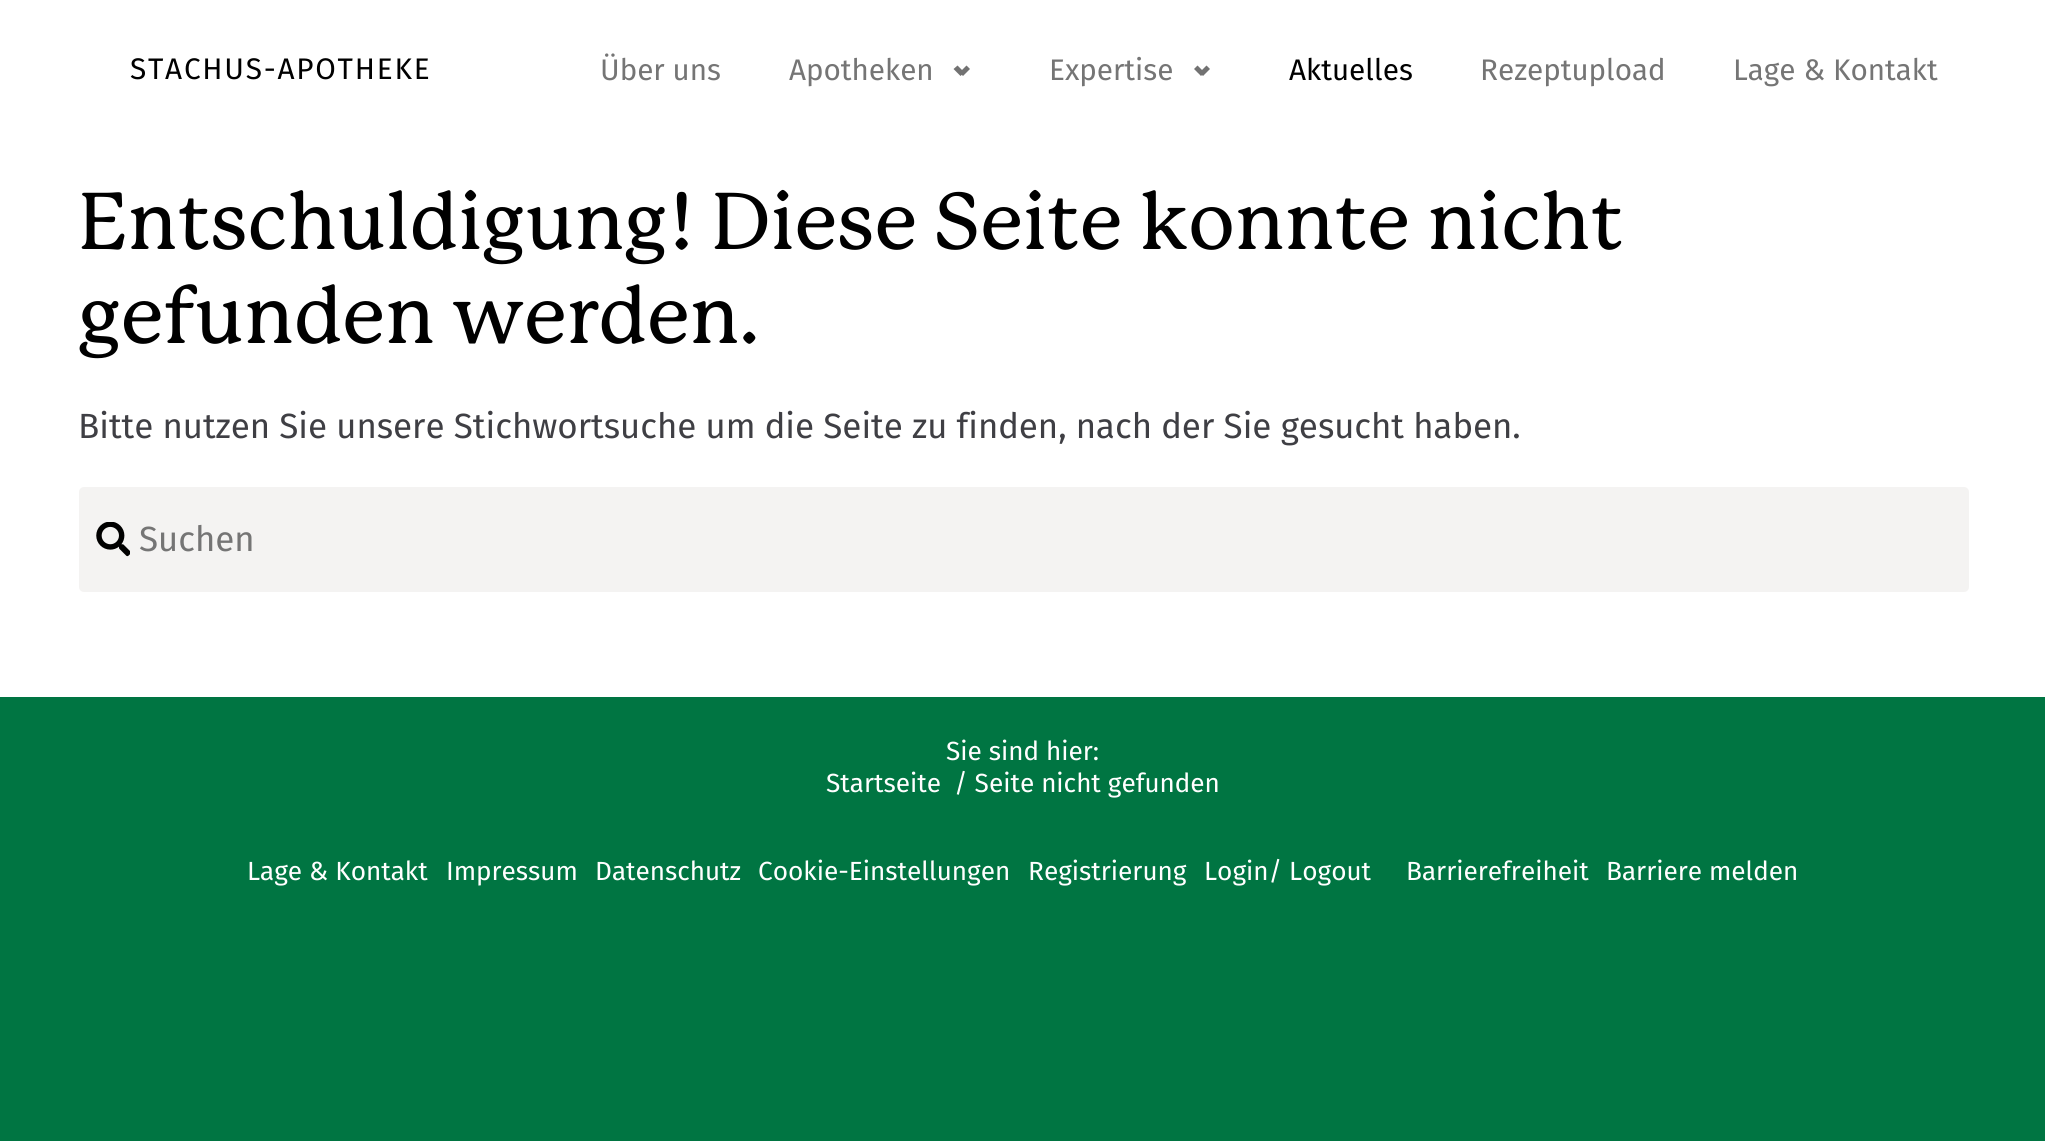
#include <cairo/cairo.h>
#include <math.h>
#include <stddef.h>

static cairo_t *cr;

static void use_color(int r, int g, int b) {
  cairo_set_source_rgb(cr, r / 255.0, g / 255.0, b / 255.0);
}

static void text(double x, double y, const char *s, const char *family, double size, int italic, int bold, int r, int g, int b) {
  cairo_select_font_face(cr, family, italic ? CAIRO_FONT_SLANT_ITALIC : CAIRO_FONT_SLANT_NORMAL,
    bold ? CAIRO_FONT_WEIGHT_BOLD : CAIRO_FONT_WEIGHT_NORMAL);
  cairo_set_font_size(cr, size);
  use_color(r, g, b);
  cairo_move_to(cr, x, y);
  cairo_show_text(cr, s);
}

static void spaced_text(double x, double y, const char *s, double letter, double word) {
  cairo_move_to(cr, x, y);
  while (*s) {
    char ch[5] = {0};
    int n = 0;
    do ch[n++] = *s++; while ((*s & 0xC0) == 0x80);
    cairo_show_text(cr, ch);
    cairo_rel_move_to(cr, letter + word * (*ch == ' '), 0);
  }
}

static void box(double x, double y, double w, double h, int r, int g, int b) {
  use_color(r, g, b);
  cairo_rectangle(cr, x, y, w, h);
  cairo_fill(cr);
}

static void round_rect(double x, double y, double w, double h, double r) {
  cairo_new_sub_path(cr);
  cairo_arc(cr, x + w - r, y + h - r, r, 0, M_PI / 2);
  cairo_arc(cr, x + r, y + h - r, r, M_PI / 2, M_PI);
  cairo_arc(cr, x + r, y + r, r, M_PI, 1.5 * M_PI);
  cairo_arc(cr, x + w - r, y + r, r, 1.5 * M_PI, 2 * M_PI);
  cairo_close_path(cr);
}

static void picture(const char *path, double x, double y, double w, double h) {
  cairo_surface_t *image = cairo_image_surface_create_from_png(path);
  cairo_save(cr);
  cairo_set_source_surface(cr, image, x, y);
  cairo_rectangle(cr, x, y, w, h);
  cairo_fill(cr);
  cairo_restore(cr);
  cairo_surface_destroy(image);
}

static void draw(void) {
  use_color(0, 117, 66);
  cairo_paint(cr);
  box(0, 0, 2045, 697, 255, 255, 255);
  use_color(114, 114, 114);
  cairo_new_path(cr);
  cairo_move_to(cr, 970, 69);
  cairo_line_to(cr, 963, 76);
  cairo_line_to(cr, 959.5, 72.5);
  cairo_line_to(cr, 966.5, 65.5);
  cairo_close_path(cr);
  cairo_fill(cr);
  cairo_new_path(cr);
  cairo_move_to(cr, 964.5, 72.5);
  cairo_line_to(cr, 960.5, 76);
  cairo_line_to(cr, 953.5, 69);
  cairo_line_to(cr, 957.5, 65.5);
  cairo_close_path(cr);
  cairo_fill(cr);
  cairo_new_path(cr);
  cairo_move_to(cr, 1210, 69);
  cairo_line_to(cr, 1203, 76);
  cairo_line_to(cr, 1199.5, 72.5);
  cairo_line_to(cr, 1206.5, 65.5);
  cairo_close_path(cr);
  cairo_fill(cr);
  cairo_new_path(cr);
  cairo_move_to(cr, 1204.5, 72.5);
  cairo_line_to(cr, 1201, 76);
  cairo_line_to(cr, 1194, 69);
  cairo_line_to(cr, 1197.5, 65.5);
  cairo_close_path(cr);
  cairo_fill(cr);
  use_color(244, 243, 242);
  round_rect(79, 487, 1890, 105, 5);
  cairo_fill(cr);
  picture("img_01.png", 96, 522, 34, 35);
  cairo_select_font_face(cr, "Fira Sans", CAIRO_FONT_SLANT_NORMAL, CAIRO_FONT_WEIGHT_NORMAL);
  cairo_set_font_size(cr, 29.75);
  use_color(0, 0, 0);
  spaced_text(130, 79, "STACHUS-APOTHEKE", 1.75, 0);
  text(600, 80, "Über uns", "Fira Sans", 29.75, 0, 0, 117, 117, 117);
  text(789, 80, "Apotheken", "Fira Sans", 29.75, 0, 0, 117, 117, 117);
  text(1049, 80, "Expertise", "Fira Sans", 29.75, 0, 0, 117, 117, 117);
  text(1289, 80, "Aktuelles", "Fira Sans", 29.75, 0, 0, 0, 0, 0);
  text(1480, 80, "Rezeptupload", "Fira Sans", 29.75, 0, 0, 117, 117, 117);
  text(1733, 80, "Lage & Kontakt", "Fira Sans", 29.75, 0, 0, 117, 117, 117);
  text(78, 249, "Entschuldigung! Diese Seite konnte nicht", "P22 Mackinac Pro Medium", 78.75, 0, 0, 0, 0, 0);
  text(78, 343, "gefunden werden.", "P22 Mackinac Pro Medium", 78.75, 0, 0, 0, 0, 0);
  text(78, 438, "Bitte nutzen Sie unsere Stichwortsuche um die Seite zu finden, nach der Sie gesucht haben.", "Fira Sans", 35, 0, 0, 63, 63, 68);
  text(139, 551, "Suchen", "Fira Sans", 35, 0, 0, 117, 117, 117);
  text(946, 760, "Sie sind hier:", "Fira Sans", 26.25, 0, 0, 255, 255, 255);
  text(826, 792, "Startseite", "Fira Sans", 26.25, 0, 0, 255, 255, 255);
  text(954, 792, "/ Seite nicht gefunden", "Fira Sans", 26.25, 0, 0, 255, 255, 255);
  text(247, 880, "Lage & Kontakt", "Fira Sans", 26.25, 0, 0, 255, 255, 255);
  text(446, 880, "Impressum", "Fira Sans", 26.25, 0, 0, 255, 255, 255);
  text(595, 880, "Datenschutz", "Fira Sans", 26.25, 0, 0, 255, 255, 255);
  text(758, 880, "Cookie-Einstellungen", "Fira Sans", 26.25, 0, 0, 255, 255, 255);
  text(1028, 880, "Registrierung", "Fira Sans", 26.25, 0, 0, 255, 255, 255);
  text(1204, 880, "Login/ Logout", "Fira Sans", 26.25, 0, 0, 255, 255, 255);
  text(1406, 880, "Barrierefreiheit", "Fira Sans", 26.25, 0, 0, 255, 255, 255);
  text(1606, 880, "Barriere melden", "Fira Sans", 26.25, 0, 0, 255, 255, 255);
}

int main(void) {
  cairo_surface_t *surface = cairo_image_surface_create(CAIRO_FORMAT_RGB24, 2045, 1141);
  cr = cairo_create(surface);
  cairo_font_options_t *options = cairo_font_options_create();
  cairo_font_options_set_hint_metrics(options, CAIRO_HINT_METRICS_OFF);
  cairo_font_options_set_hint_style(options, CAIRO_HINT_STYLE_NONE);
  cairo_set_font_options(cr, options);
  cairo_set_miter_limit(cr, 4);
  draw();
  cairo_surface_write_to_png(surface, "out.png");
  cairo_font_options_destroy(options);
  cairo_destroy(cr);
  cairo_surface_destroy(surface);
  return 0;
}
